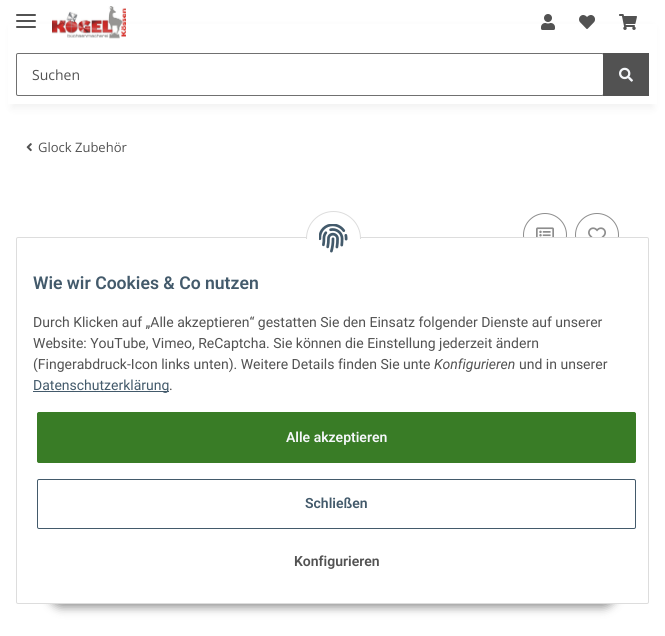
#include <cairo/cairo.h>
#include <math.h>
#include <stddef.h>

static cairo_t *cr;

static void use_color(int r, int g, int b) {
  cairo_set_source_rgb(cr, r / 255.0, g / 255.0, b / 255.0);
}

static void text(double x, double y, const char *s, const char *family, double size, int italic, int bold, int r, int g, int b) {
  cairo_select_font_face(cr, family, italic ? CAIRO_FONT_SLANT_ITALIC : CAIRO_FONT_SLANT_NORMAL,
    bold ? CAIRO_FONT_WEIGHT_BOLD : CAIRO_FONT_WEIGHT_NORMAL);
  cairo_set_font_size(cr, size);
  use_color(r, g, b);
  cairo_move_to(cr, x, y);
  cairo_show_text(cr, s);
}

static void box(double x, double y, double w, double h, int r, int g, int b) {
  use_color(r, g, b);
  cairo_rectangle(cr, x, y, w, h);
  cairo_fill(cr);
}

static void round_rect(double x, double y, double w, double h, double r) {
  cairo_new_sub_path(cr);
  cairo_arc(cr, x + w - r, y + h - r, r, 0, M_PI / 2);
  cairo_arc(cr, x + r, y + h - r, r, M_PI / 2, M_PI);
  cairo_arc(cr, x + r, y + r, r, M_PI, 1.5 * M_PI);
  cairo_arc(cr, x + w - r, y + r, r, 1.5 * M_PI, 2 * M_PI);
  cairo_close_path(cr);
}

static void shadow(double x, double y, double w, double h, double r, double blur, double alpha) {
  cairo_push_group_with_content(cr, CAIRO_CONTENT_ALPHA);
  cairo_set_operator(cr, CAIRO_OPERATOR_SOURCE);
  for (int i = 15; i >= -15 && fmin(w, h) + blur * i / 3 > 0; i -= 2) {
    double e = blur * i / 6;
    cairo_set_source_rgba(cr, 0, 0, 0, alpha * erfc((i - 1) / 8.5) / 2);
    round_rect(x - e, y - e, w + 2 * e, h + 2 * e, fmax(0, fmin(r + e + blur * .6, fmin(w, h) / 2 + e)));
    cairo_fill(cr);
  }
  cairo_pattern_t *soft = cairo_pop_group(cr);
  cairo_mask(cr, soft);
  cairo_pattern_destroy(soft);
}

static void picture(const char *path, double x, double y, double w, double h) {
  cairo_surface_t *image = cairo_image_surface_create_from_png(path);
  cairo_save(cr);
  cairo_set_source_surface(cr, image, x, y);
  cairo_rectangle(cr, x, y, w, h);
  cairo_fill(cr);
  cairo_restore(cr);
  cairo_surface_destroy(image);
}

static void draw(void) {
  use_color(255, 255, 255);
  cairo_paint(cr);
  use_color(0, 0, 0);
  shadow(12, 28, 641, 80, 0, 4.5, 0.06);
  box(8, 24, 649, 80, 255, 255, 255);
  use_color(82, 82, 82);
  round_rect(16, 20, 20, 2, 1);
  cairo_fill(cr);
  round_rect(16, 14, 20, 2, 1);
  cairo_fill(cr);
  round_rect(16, 26, 20, 2, 1);
  cairo_fill(cr);
  picture("img_01.png", 52, 6, 74, 33);
  picture("img_02.png", 541, 14, 14, 16);
  picture("img_03.png", 579, 15, 16, 14);
  picture("img_04.png", 619, 14, 18, 16);
  round_rect(16.5, 53.5, 587, 42, 1.5);
  use_color(112, 112, 112);
  cairo_set_line_width(cr, 1);
  cairo_stroke(cr);
  box(603, 53, 46, 43, 82, 82, 82);
  picture("img_05.png", 619, 67, 14, 15);
  picture("img_06.png", 26, 143, 6, 9);
  cairo_arc(cr, 545, 235, 21.5, 0, 2 * M_PI);
  use_color(141, 141, 141);
  cairo_stroke(cr);
  picture("img_07.png", 536, 227, 18, 10);
  cairo_arc(cr, 597, 235, 21.5, 0, 2 * M_PI);
  cairo_stroke(cr);
  picture("img_08.png", 588, 227, 18, 10);
  use_color(0, 0, 0);
  shadow(49, 575, 567, 32, 16, 5, 0.45);
  use_color(255, 255, 255);
  round_rect(16.5, 237.5, 632, 366, 1.5);
  cairo_fill_preserve(cr);
  use_color(221, 221, 221);
  cairo_stroke(cr);
  use_color(255, 255, 255);
  cairo_arc(cr, 333.5, 238.5, 27, 0, 2 * M_PI);
  cairo_fill_preserve(cr);
  use_color(221, 221, 221);
  cairo_stroke(cr);
  box(306, 239, 55, 27, 255, 255, 255);
  picture("img_09.png", 319, 224, 29, 29);
  box(33, 391, 136, 1, 67, 90, 107);
  use_color(57, 124, 38);
  round_rect(37.5, 412.5, 598, 50, 1.5);
  cairo_fill_preserve(cr);
  cairo_stroke(cr);
  round_rect(37.5, 479.5, 598, 49, 1.5);
  use_color(67, 90, 107);
  cairo_stroke(cr);
  text(32, 80, "Suchen", "Open Sans", 14, 0, 0, 82, 82, 82);
  text(38, 152, "Glock Zubehör", "Open Sans", 13, 0, 0, 82, 82, 82);
  text(33, 289, "Wie wir Cookies & Co nutzen", "Roboto SemiBold", 17.6, 0, 0, 67, 90, 107);
  text(33, 327, "Durch Klicken auf „Alle akzeptieren“ gestatten Sie den Einsatz folgender Dienste auf unserer", "Roboto", 14, 0, 0, 82, 82, 82);
  text(33, 348, "Website: YouTube, Vimeo, ReCaptcha. Sie können die Einstellung jederzeit ändern", "Roboto", 14, 0, 0, 82, 82, 82);
  text(33, 369, "(Fingerabdruck-Icon links unten). Weitere Details finden Sie unte", "Roboto", 14, 0, 0, 82, 82, 82);
  text(434, 369, "Konfigurieren", "Roboto", 14, 1, 0, 82, 82, 82);
  text(519, 369, "und in unserer", "Roboto", 14, 0, 0, 82, 82, 82);
  text(33, 390, "Datenschutzerklärung", "Roboto", 14, 0, 0, 67, 90, 107);
  text(169, 390, ".", "Roboto", 14, 0, 0, 82, 82, 82);
  text(286, 442, "Alle akzeptieren", "Roboto SemiBold", 14, 0, 0, 245, 247, 250);
  text(305, 508, "Schließen", "Roboto SemiBold", 14, 0, 0, 67, 90, 107);
  text(294, 566, "Konfigurieren", "Roboto SemiBold", 14, 0, 0, 82, 82, 82);
}

int main(void) {
  cairo_surface_t *surface = cairo_image_surface_create(CAIRO_FORMAT_RGB24, 665, 636);
  cr = cairo_create(surface);
  cairo_font_options_t *options = cairo_font_options_create();
  cairo_font_options_set_hint_metrics(options, CAIRO_HINT_METRICS_OFF);
  cairo_font_options_set_hint_style(options, CAIRO_HINT_STYLE_NONE);
  cairo_set_font_options(cr, options);
  cairo_set_miter_limit(cr, 4);
  draw();
  cairo_surface_write_to_png(surface, "out.png");
  cairo_font_options_destroy(options);
  cairo_destroy(cr);
  cairo_surface_destroy(surface);
  return 0;
}
